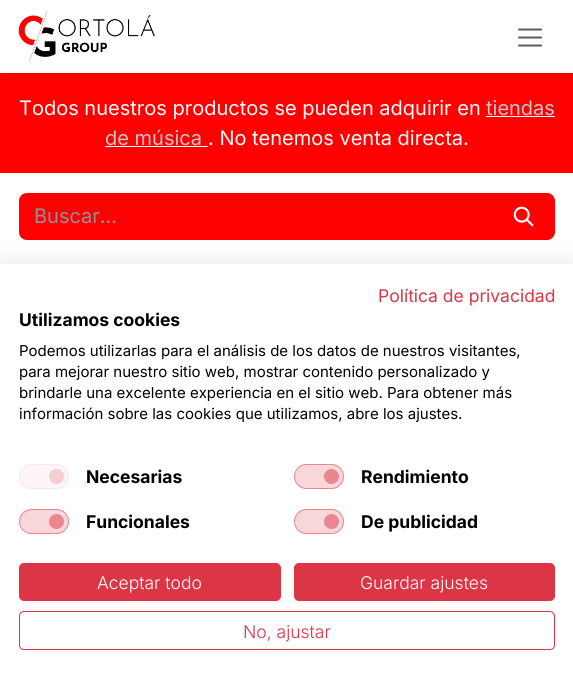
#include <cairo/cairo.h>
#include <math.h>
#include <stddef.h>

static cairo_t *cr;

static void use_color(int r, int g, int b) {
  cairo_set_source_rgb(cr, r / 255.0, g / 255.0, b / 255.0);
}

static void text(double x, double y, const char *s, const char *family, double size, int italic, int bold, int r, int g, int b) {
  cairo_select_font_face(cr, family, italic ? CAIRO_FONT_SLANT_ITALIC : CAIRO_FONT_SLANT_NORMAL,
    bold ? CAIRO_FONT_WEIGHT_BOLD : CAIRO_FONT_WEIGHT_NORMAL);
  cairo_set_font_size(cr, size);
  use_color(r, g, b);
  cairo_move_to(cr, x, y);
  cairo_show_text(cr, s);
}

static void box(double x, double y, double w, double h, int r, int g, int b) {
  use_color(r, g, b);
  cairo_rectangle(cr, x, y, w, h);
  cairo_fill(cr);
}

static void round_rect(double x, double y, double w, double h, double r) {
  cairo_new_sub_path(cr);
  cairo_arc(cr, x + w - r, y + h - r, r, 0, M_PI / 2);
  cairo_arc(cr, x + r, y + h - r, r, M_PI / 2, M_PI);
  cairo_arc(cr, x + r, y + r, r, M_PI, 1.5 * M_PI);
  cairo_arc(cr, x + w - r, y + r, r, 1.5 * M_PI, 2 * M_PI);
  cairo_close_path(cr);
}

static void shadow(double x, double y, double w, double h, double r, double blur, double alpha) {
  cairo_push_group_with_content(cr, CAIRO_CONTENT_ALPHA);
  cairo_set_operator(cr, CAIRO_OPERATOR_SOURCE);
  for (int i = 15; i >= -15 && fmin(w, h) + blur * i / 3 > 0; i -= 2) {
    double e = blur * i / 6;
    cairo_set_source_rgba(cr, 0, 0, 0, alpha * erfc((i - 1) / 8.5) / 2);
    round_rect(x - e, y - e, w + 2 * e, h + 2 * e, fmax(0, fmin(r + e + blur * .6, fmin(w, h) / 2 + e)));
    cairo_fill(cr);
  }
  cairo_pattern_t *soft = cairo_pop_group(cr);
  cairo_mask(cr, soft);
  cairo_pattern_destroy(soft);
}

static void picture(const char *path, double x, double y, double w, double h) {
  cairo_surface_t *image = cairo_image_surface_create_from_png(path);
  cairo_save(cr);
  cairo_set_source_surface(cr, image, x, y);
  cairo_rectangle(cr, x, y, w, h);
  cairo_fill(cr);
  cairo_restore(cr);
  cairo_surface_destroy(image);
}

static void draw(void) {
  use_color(255, 255, 255);
  cairo_paint(cr);
  box(0, 73, 573, 100, 255, 0, 0);
  use_color(0, 0, 0);
  shadow(0, 1, 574, 73, 0, 2, 0.1);
  box(0, 0, 573, 73, 255, 255, 255);
  picture("img_01.png", 18, 11, 137, 51);
  picture("img_02.png", 518, 28, 24, 19);
  box(486, 116, 69, 1, 255, 255, 255);
  box(105, 146, 103, 1, 255, 255, 255);
  use_color(255, 0, 0);
  cairo_new_path(cr);
  cairo_move_to(cr, 27, 193);
  cairo_line_to(cr, 494, 193);
  cairo_line_to(cr, 494, 240);
  cairo_line_to(cr, 27, 240);
  cairo_curve_to(cr, 22.5, 240, 19, 236.5, 19, 232);
  cairo_line_to(cr, 19, 201);
  cairo_curve_to(cr, 19, 196.5, 22.5, 193, 27, 193);
  cairo_close_path(cr);
  cairo_fill(cr);
  cairo_new_path(cr);
  cairo_move_to(cr, 493.5, 193.5);
  cairo_line_to(cr, 547, 193.5);
  cairo_curve_to(cr, 551, 193.5, 554.5, 197, 554.5, 201);
  cairo_line_to(cr, 554.5, 232);
  cairo_curve_to(cr, 554.5, 236, 551, 239.5, 547, 239.5);
  cairo_line_to(cr, 493.5, 239.5);
  cairo_close_path(cr);
  cairo_fill_preserve(cr);
  cairo_set_line_width(cr, 1);
  cairo_stroke(cr);
  picture("img_03.png", 513, 206, 21, 21);
  use_color(0, 0, 0);
  shadow(0, 264, 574, 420, 0, 15, 0.1);
  box(0, 264, 573, 419, 255, 255, 255);
  use_color(253, 245, 246);
  round_rect(19, 464, 50, 25, 12.5);
  cairo_fill(cr);
  use_color(246, 205, 209);
  cairo_arc(cr, 56.5, 476.5, 7.5, 0, 2 * M_PI);
  cairo_fill(cr);
  round_rect(19.5, 464.5, 49, 24, 12);
  use_color(251, 230, 232);
  cairo_stroke(cr);
  use_color(248, 215, 218);
  round_rect(294, 464, 50, 25, 12.5);
  cairo_fill(cr);
  use_color(234, 134, 144);
  cairo_arc(cr, 331.5, 476.5, 7.5, 0, 2 * M_PI);
  cairo_fill(cr);
  round_rect(294.5, 464.5, 49, 24, 12);
  cairo_set_source_rgba(cr, 0.863, 0.208, 0.271, 0.5);
  cairo_stroke(cr);
  use_color(248, 215, 218);
  round_rect(19, 509, 50, 25, 12.5);
  cairo_fill(cr);
  use_color(234, 134, 144);
  cairo_arc(cr, 56.5, 521.5, 7.5, 0, 2 * M_PI);
  cairo_fill(cr);
  round_rect(19.5, 509.5, 49, 24, 12);
  cairo_set_source_rgba(cr, 0.863, 0.208, 0.271, 0.5);
  cairo_stroke(cr);
  use_color(248, 215, 218);
  round_rect(294, 509, 50, 25, 12.5);
  cairo_fill(cr);
  use_color(234, 134, 144);
  cairo_arc(cr, 331.5, 521.5, 7.5, 0, 2 * M_PI);
  cairo_fill(cr);
  round_rect(294.5, 509.5, 49, 24, 12);
  cairo_set_source_rgba(cr, 0.863, 0.208, 0.271, 0.5);
  cairo_stroke(cr);
  use_color(220, 53, 69);
  round_rect(19.5, 563.5, 261, 37, 4.5);
  cairo_fill_preserve(cr);
  cairo_stroke(cr);
  round_rect(294.5, 563.5, 260, 37, 4.5);
  cairo_fill_preserve(cr);
  cairo_stroke(cr);
  round_rect(19.5, 611.5, 535, 38, 4.5);
  cairo_stroke(cr);
  text(19, 115, "Todos nuestros productos se pueden adquirir en", "Inter", 20, 0, 0, 255, 255, 255);
  text(486, 115, "tiendas", "Inter", 20, 0, 0, 199, 198, 200);
  text(105, 145, "de música", "Inter", 20, 0, 0, 199, 198, 200);
  text(208, 145, ". No tenemos venta directa.", "Inter", 20, 0, 0, 255, 255, 255);
  text(34, 223, "Buscar…", "Inter", 20, 0, 0, 144, 146, 148);
  text(378, 302, "Política de privacidad", "Inter", 17.5, 0, 0, 220, 53, 69);
  text(19, 326, "Utilizamos cookies", "Inter", 17.5, 0, 1, 0, 0, 0);
  text(19, 356, "Podemos utilizarlas para el análisis de los datos de nuestros visitantes,", "Inter", 15, 0, 0, 0, 0, 0);
  text(19, 377, "para mejorar nuestro sitio web, mostrar contenido personalizado y", "Inter", 15, 0, 0, 0, 0, 0);
  text(19, 398, "brindarle una excelente experiencia en el sitio web. Para obtener más", "Inter", 15, 0, 0, 0, 0, 0);
  text(19, 419, "información sobre las cookies que utilizamos, abre los ajustes.", "Inter", 15, 0, 0, 0, 0, 0);
  text(86, 483, "Necesarias", "Inter", 17.5, 0, 1, 0, 0, 0);
  text(361, 483, "Rendimiento", "Inter", 17.5, 0, 1, 0, 0, 0);
  text(86, 528, "Funcionales", "Inter", 17.5, 0, 1, 0, 0, 0);
  text(361, 528, "De publicidad", "Inter", 17.5, 0, 1, 0, 0, 0);
  text(97, 589, "Aceptar todo", "Inter Light", 17.5, 0, 0, 255, 255, 255);
  text(360, 589, "Guardar ajustes", "Inter Light", 17.5, 0, 0, 255, 255, 255);
  text(243, 638, "No, ajustar", "Inter Light", 17.5, 0, 0, 220, 53, 69);
}

int main(void) {
  cairo_surface_t *surface = cairo_image_surface_create(CAIRO_FORMAT_RGB24, 573, 683);
  cr = cairo_create(surface);
  cairo_font_options_t *options = cairo_font_options_create();
  cairo_font_options_set_hint_metrics(options, CAIRO_HINT_METRICS_OFF);
  cairo_font_options_set_hint_style(options, CAIRO_HINT_STYLE_NONE);
  cairo_set_font_options(cr, options);
  cairo_set_miter_limit(cr, 4);
  draw();
  cairo_surface_write_to_png(surface, "out.png");
  cairo_font_options_destroy(options);
  cairo_destroy(cr);
  cairo_surface_destroy(surface);
  return 0;
}
